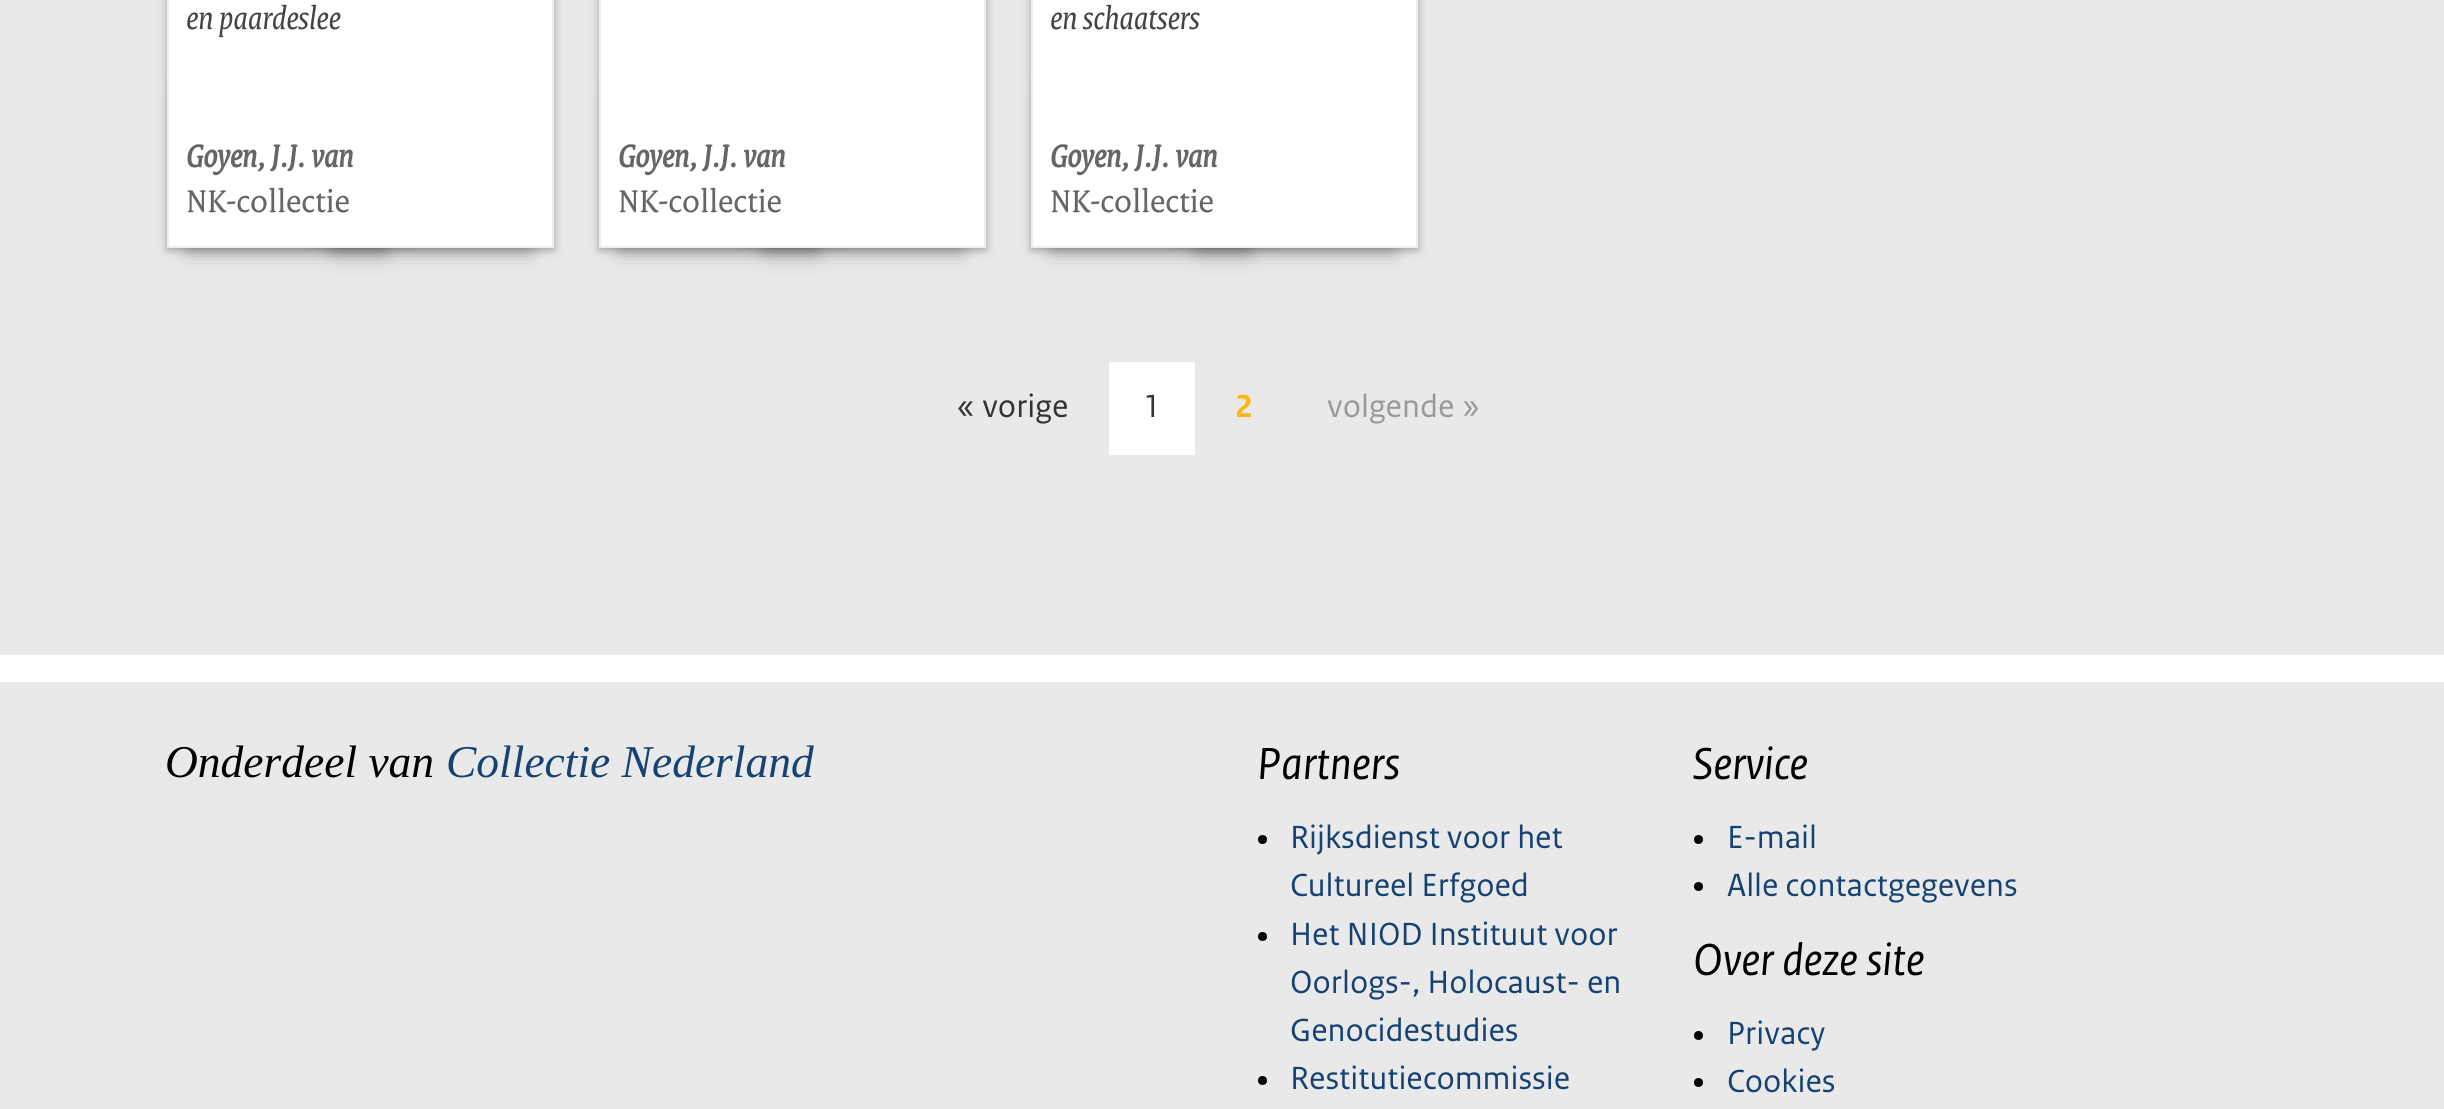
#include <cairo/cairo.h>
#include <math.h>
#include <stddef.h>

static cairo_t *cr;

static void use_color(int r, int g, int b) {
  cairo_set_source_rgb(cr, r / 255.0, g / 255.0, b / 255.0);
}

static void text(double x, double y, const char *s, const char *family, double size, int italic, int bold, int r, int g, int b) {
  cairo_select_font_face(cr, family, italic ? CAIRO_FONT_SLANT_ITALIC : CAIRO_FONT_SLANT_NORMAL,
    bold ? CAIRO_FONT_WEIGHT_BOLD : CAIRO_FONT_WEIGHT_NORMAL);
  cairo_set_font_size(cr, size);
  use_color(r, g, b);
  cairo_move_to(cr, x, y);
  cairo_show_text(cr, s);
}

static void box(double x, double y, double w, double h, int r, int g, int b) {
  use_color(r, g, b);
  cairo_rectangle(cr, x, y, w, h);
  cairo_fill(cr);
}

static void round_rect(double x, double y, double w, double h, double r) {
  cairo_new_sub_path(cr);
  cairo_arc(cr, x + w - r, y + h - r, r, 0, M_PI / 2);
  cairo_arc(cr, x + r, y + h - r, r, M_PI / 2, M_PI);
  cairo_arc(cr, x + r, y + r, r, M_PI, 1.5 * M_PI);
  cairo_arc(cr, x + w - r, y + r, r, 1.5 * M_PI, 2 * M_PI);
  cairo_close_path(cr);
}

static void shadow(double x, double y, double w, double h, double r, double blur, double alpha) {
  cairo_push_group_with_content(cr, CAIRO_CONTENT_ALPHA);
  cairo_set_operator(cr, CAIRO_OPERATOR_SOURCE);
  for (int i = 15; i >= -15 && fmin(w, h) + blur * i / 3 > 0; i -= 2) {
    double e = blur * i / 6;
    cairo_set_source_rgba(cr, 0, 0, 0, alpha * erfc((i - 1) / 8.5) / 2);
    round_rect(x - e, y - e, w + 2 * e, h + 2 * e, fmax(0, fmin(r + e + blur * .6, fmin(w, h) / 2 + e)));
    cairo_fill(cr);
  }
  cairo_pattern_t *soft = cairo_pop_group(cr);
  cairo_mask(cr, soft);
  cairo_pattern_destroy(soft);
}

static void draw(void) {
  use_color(233, 233, 233);
  cairo_paint(cr);
  use_color(0, 0, 0);
  shadow(167, -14, 387, 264, 0, 4.5, 0.3);
  use_color(31, 31, 31);
  shadow(189, 86, 194, 162, 0, 11, 0.5);
  shadow(335, 86, 194, 162, 0, 11, 0.5);
  use_color(255, 255, 255);
  cairo_rectangle(cr, 168, -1, 385, 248);
  cairo_fill_preserve(cr);
  use_color(238, 238, 238);
  cairo_stroke(cr);
  use_color(0, 0, 0);
  shadow(599, -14, 387, 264, 0, 4.5, 0.3);
  use_color(31, 31, 31);
  shadow(621, 86, 194, 162, 0, 11, 0.5);
  shadow(767, 86, 194, 162, 0, 11, 0.5);
  use_color(255, 255, 255);
  cairo_rectangle(cr, 600, -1, 385, 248);
  cairo_fill_preserve(cr);
  use_color(238, 238, 238);
  cairo_stroke(cr);
  use_color(0, 0, 0);
  shadow(1031, -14, 387, 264, 0, 4.5, 0.3);
  use_color(31, 31, 31);
  shadow(1053, 86, 194, 162, 0, 11, 0.5);
  shadow(1199, 86, 194, 162, 0, 11, 0.5);
  use_color(255, 255, 255);
  cairo_rectangle(cr, 1032, -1, 385, 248);
  cairo_fill_preserve(cr);
  use_color(238, 238, 238);
  cairo_stroke(cr);
  box(1109, 362, 86, 93, 255, 255, 255);
  box(0, 655, 2444, 27, 255, 255, 255);
  box(0, 653, 2444, 2, 238, 238, 238);
  use_color(0, 0, 0);
  cairo_arc(cr, 1262.5, 839.5, 4.5, 0, 2 * M_PI);
  cairo_fill(cr);
  cairo_arc(cr, 1262.5, 936.5, 4.5, 0, 2 * M_PI);
  cairo_fill(cr);
  cairo_arc(cr, 1262.5, 1080.5, 4.5, 0, 2 * M_PI);
  cairo_fill(cr);
  cairo_arc(cr, 1698.5, 839.5, 4.5, 0, 2 * M_PI);
  cairo_fill(cr);
  cairo_arc(cr, 1698.5, 886.5, 4.5, 0, 2 * M_PI);
  cairo_fill(cr);
  cairo_arc(cr, 1698.5, 1035.5, 4.5, 0, 2 * M_PI);
  cairo_fill(cr);
  cairo_arc(cr, 1698.5, 1082.5, 4.5, 0, 2 * M_PI);
  cairo_fill(cr);
  text(186, 29, "en paardeslee", "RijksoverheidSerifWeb", 33.75, 1, 0, 68, 68, 68);
  text(186, 167, "Goyen, J.J. van", "RijksoverheidSerifWeb", 33.75, 1, 1, 102, 102, 102);
  text(186, 212, "NK-collectie", "RijksoverheidSerifWeb", 33.75, 0, 0, 102, 102, 102);
  text(618, 167, "Goyen, J.J. van", "RijksoverheidSerifWeb", 33.75, 1, 1, 102, 102, 102);
  text(618, 212, "NK-collectie", "RijksoverheidSerifWeb", 33.75, 0, 0, 102, 102, 102);
  text(1050, 29, "en schaatsers", "RijksoverheidSerifWeb", 33.75, 1, 0, 68, 68, 68);
  text(1050, 167, "Goyen, J.J. van", "RijksoverheidSerifWeb", 33.75, 1, 1, 102, 102, 102);
  text(1050, 212, "NK-collectie", "RijksoverheidSerifWeb", 33.75, 0, 0, 102, 102, 102);
  text(956, 417, "« vorige", "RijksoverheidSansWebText", 33.75, 0, 0, 51, 51, 51);
  text(1143, 417, "1", "RijksoverheidSansWebText", 33.75, 0, 0, 51, 51, 51);
  text(1235, 417, "2", "RijksoverheidSansWebText", 33.75, 0, 1, 255, 182, 18);
  text(1327, 417, "volgende »", "RijksoverheidSansWebText", 33.75, 0, 0, 153, 153, 153);
  text(165, 777, "Onderdeel van", "Liberation Serif", 45.5, 1, 0, 0, 0, 0);
  text(446, 777, "Collectie Nederland", "Liberation Serif", 45.5, 1, 0, 21, 66, 115);
  text(1257, 779, "Partners", "RijksoverheidSansWebText", 47.25, 1, 0, 0, 0, 0);
  text(1290, 848, "Rijksdienst voor het", "RijksoverheidSansWebText", 33.75, 0, 0, 21, 66, 115);
  text(1290, 896, "Cultureel Erfgoed", "RijksoverheidSansWebText", 33.75, 0, 0, 21, 66, 115);
  text(1290, 945, "Het NIOD Instituut voor", "RijksoverheidSansWebText", 33.75, 0, 0, 21, 66, 115);
  text(1290, 993, "Oorlogs-, Holocaust- en", "RijksoverheidSansWebText", 33.75, 0, 0, 21, 66, 115);
  text(1290, 1041, "Genocidestudies", "RijksoverheidSansWebText", 33.75, 0, 0, 21, 66, 115);
  text(1290, 1089, "Restitutiecommissie", "RijksoverheidSansWebText", 33.75, 0, 0, 21, 66, 115);
  text(1693, 779, "Service", "RijksoverheidSansWebText", 47.25, 1, 0, 0, 0, 0);
  text(1727, 848, "E-mail", "RijksoverheidSansWebText", 33.75, 0, 0, 21, 66, 115);
  text(1727, 896, "Alle contactgegevens", "RijksoverheidSansWebText", 33.75, 0, 0, 21, 66, 115);
  text(1693, 975, "Over deze site", "RijksoverheidSansWebText", 47.25, 1, 0, 0, 0, 0);
  text(1727, 1044, "Privacy", "RijksoverheidSansWebText", 33.75, 0, 0, 21, 66, 115);
  text(1727, 1092, "Cookies", "RijksoverheidSansWebText", 33.75, 0, 0, 21, 66, 115);
}

int main(void) {
  cairo_surface_t *surface = cairo_image_surface_create(CAIRO_FORMAT_RGB24, 2444, 1109);
  cr = cairo_create(surface);
  cairo_font_options_t *options = cairo_font_options_create();
  cairo_font_options_set_hint_metrics(options, CAIRO_HINT_METRICS_OFF);
  cairo_font_options_set_hint_style(options, CAIRO_HINT_STYLE_NONE);
  cairo_set_font_options(cr, options);
  cairo_set_miter_limit(cr, 4);
  draw();
  cairo_surface_write_to_png(surface, "out.png");
  cairo_font_options_destroy(options);
  cairo_destroy(cr);
  cairo_surface_destroy(surface);
  return 0;
}
